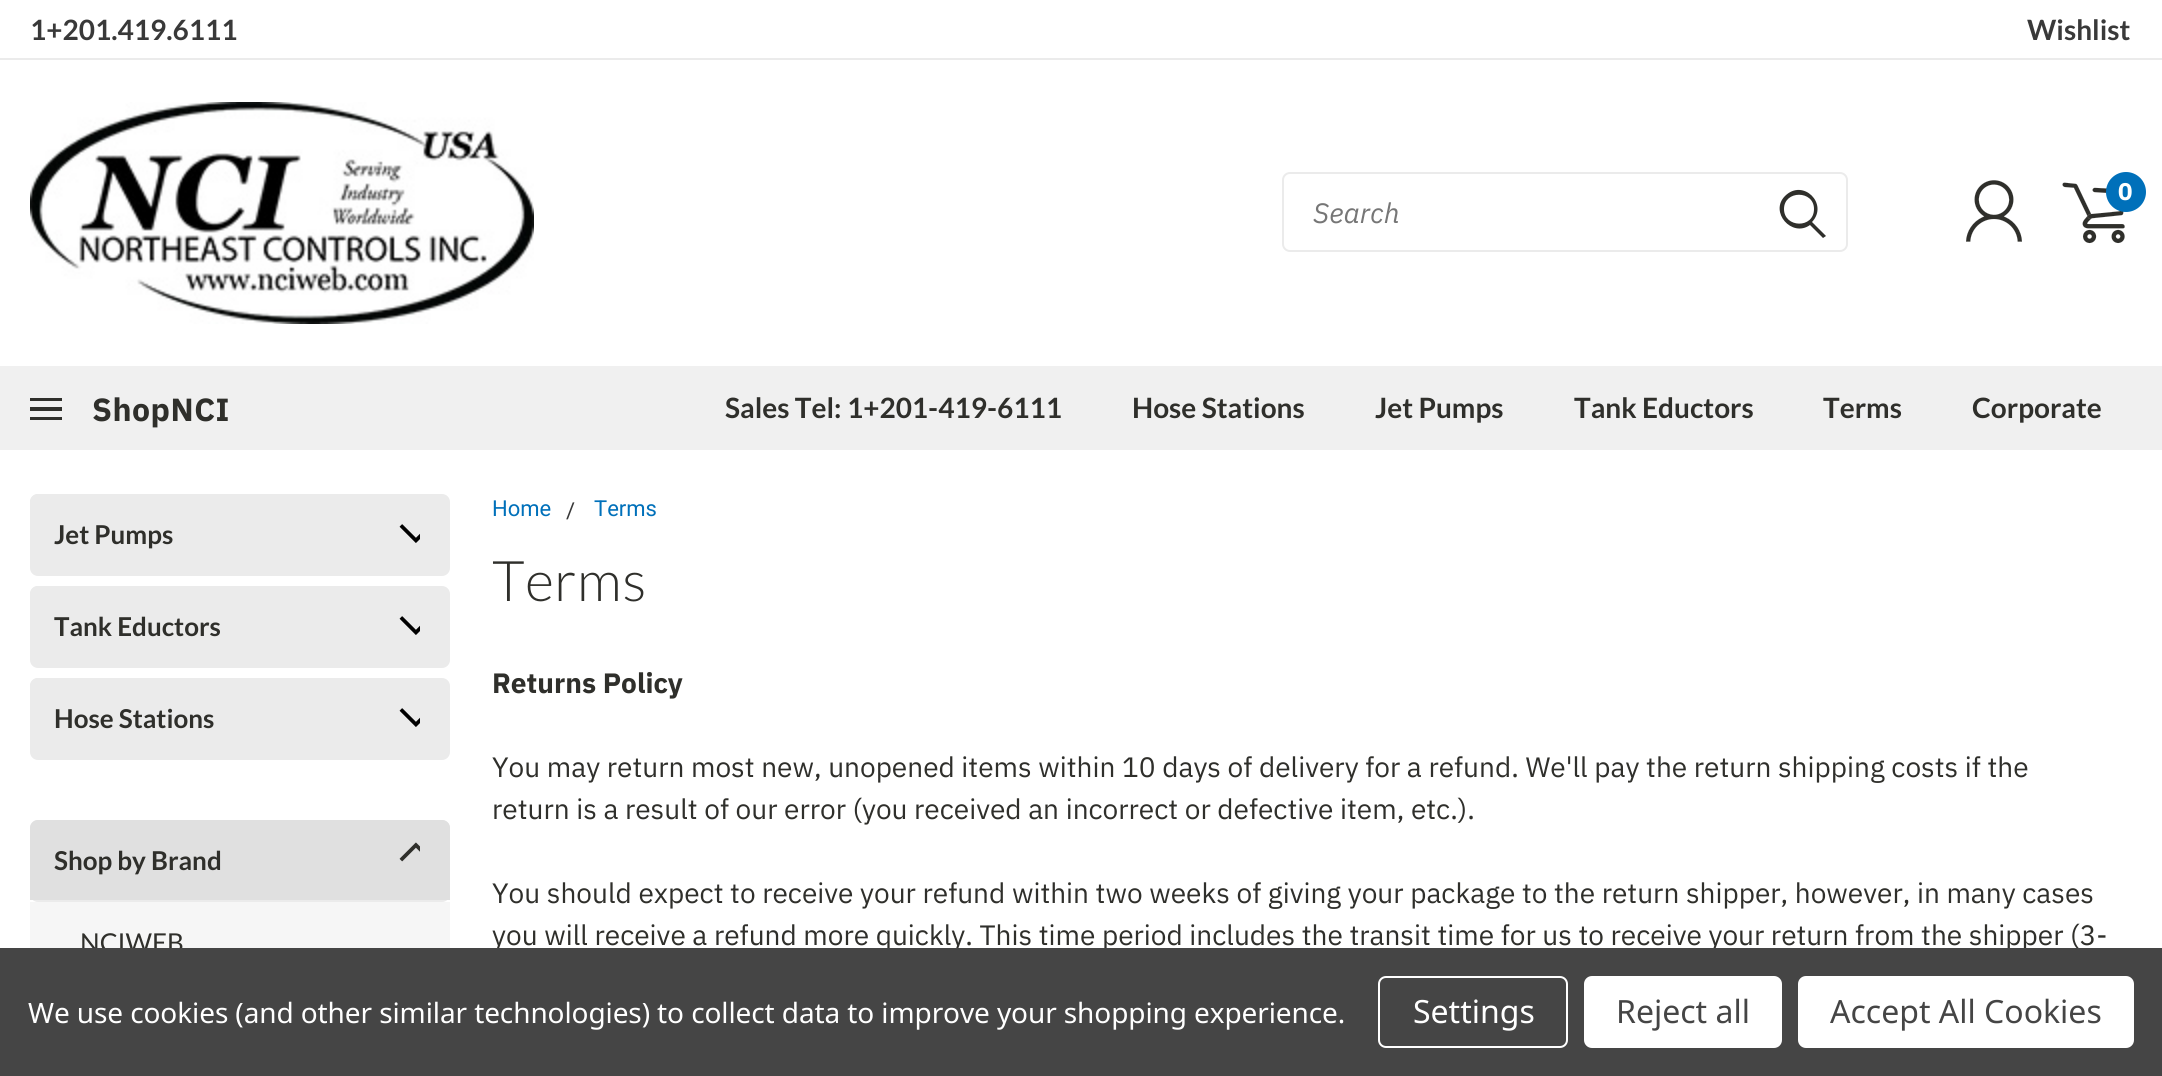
#include <cairo/cairo.h>
#include <math.h>
#include <stddef.h>

static cairo_t *cr;

static void use_color(int r, int g, int b) {
  cairo_set_source_rgb(cr, r / 255.0, g / 255.0, b / 255.0);
}

static void text(double x, double y, const char *s, const char *family, double size, int italic, int bold, int r, int g, int b) {
  cairo_select_font_face(cr, family, italic ? CAIRO_FONT_SLANT_ITALIC : CAIRO_FONT_SLANT_NORMAL,
    bold ? CAIRO_FONT_WEIGHT_BOLD : CAIRO_FONT_WEIGHT_NORMAL);
  cairo_set_font_size(cr, size);
  use_color(r, g, b);
  cairo_move_to(cr, x, y);
  cairo_show_text(cr, s);
}

static void spaced_text(double x, double y, const char *s, double letter, double word) {
  cairo_move_to(cr, x, y);
  while (*s) {
    char ch[5] = {0};
    int n = 0;
    do ch[n++] = *s++; while ((*s & 0xC0) == 0x80);
    cairo_show_text(cr, ch);
    cairo_rel_move_to(cr, letter + word * (*ch == ' '), 0);
  }
}

static void box(double x, double y, double w, double h, int r, int g, int b) {
  use_color(r, g, b);
  cairo_rectangle(cr, x, y, w, h);
  cairo_fill(cr);
}

static void round_rect(double x, double y, double w, double h, double r) {
  cairo_new_sub_path(cr);
  cairo_arc(cr, x + w - r, y + h - r, r, 0, M_PI / 2);
  cairo_arc(cr, x + r, y + h - r, r, M_PI / 2, M_PI);
  cairo_arc(cr, x + r, y + r, r, M_PI, 1.5 * M_PI);
  cairo_arc(cr, x + w - r, y + r, r, 1.5 * M_PI, 2 * M_PI);
  cairo_close_path(cr);
}

static void picture(const char *path, double x, double y, double w, double h) {
  cairo_surface_t *image = cairo_image_surface_create_from_png(path);
  cairo_save(cr);
  cairo_set_source_surface(cr, image, x, y);
  cairo_rectangle(cr, x, y, w, h);
  cairo_fill(cr);
  cairo_restore(cr);
  cairo_surface_destroy(image);
}

static void draw(void) {
  use_color(255, 255, 255);
  cairo_paint(cr);
  box(0, 58, 2162, 2, 235, 235, 235);
  picture("img_01.png", 30, 102, 504, 222);
  picture("img_02.png", 1966, 180, 56, 62);
  picture("img_03.png", 2062, 182, 63, 62);
  use_color(0, 112, 186);
  cairo_arc(cr, 2126, 192, 20, 0, 2 * M_PI);
  cairo_fill(cr);
  round_rect(1283, 173, 564, 78, 7);
  use_color(235, 235, 235);
  cairo_stroke(cr);
  use_color(47, 47, 43);
  cairo_new_path(cr);
  cairo_move_to(cr, 1826, 236);
  cairo_line_to(cr, 1812, 222);
  cairo_curve_to(cr, 1829, 204, 1803, 178, 1785, 196);
  cairo_curve_to(cr, 1769, 212, 1792, 238, 1810, 225);
  cairo_line_to(cr, 1823, 238);
  cairo_close_path(cr);
  cairo_move_to(cr, 1784, 209);
  cairo_curve_to(cr, 1784, 190, 1814, 190, 1814, 209);
  cairo_curve_to(cr, 1814, 229, 1784, 228, 1784, 209);
  cairo_close_path(cr);
  cairo_fill(cr);
  box(0, 366, 2162, 84, 240, 240, 240);
  box(30, 398, 32, 3, 47, 47, 43);
  box(30, 407, 32, 4, 47, 47, 43);
  box(30, 417, 32, 3, 47, 47, 43);
  use_color(235, 235, 235);
  round_rect(30, 494, 420, 82, 8);
  cairo_fill(cr);
  round_rect(30, 494, 358, 80, 8);
  cairo_fill(cr);
  picture("img_04.png", 399, 524, 21, 19);
  round_rect(30, 586, 420, 82, 8);
  cairo_fill(cr);
  round_rect(30, 586, 358, 80, 8);
  cairo_fill(cr);
  picture("img_04.png", 399, 616, 21, 19);
  round_rect(30, 678, 420, 82, 8);
  cairo_fill(cr);
  round_rect(30, 678, 358, 80, 8);
  cairo_fill(cr);
  picture("img_04.png", 399, 708, 21, 19);
  round_rect(30, 820, 420, 82, 8);
  cairo_fill(cr);
  use_color(224, 224, 224);
  cairo_new_path(cr);
  cairo_move_to(cr, 38, 820);
  cairo_line_to(cr, 442, 820);
  cairo_curve_to(cr, 446.5, 820, 450, 823.5, 450, 828);
  cairo_line_to(cr, 450, 900);
  cairo_line_to(cr, 30, 900);
  cairo_line_to(cr, 30, 828);
  cairo_curve_to(cr, 30, 823.5, 33.5, 820, 38, 820);
  cairo_close_path(cr);
  cairo_fill(cr);
  picture("img_05.png", 399, 842, 21, 20);
  box(30, 902, 420, 46, 246, 246, 246);
  text(30, 40, "1+201.419.6111", "Lato", 28, 0, 1, 57, 57, 57);
  text(2027, 40, "Wishlist", "Lato", 28, 0, 1, 57, 57, 57);
  text(2118, 200, "0", "IBM Plex Sans", 24, 0, 1, 255, 255, 255);
  text(1313, 223, "Search", "IBM Plex Sans", 28, 1, 0, 118, 118, 118);
  cairo_select_font_face(cr, "IBM Plex Sans", CAIRO_FONT_SLANT_NORMAL, CAIRO_FONT_WEIGHT_BOLD);
  cairo_set_font_size(cr, 32);
  use_color(47, 47, 43);
  spaced_text(92, 421, "ShopNCI", 0.5, 0);
  text(725, 418, "Sales Tel: 1+201-419-6111", "Lato", 28, 0, 1, 47, 47, 43);
  text(1132, 418, "Hose Stations", "Lato", 28, 0, 1, 47, 47, 43);
  text(1375, 418, "Jet Pumps", "Lato", 28, 0, 1, 47, 47, 43);
  text(1574, 418, "Tank Eductors", "Lato", 28, 0, 1, 47, 47, 43);
  text(1823, 418, "Terms", "Lato", 28, 0, 1, 47, 47, 43);
  text(1972, 418, "Corporate", "Lato", 28, 0, 1, 47, 47, 43);
  text(54, 544, "Jet Pumps", "Lato", 26, 0, 1, 47, 47, 43);
  text(54, 636, "Tank Eductors", "Lato", 26, 0, 1, 47, 47, 43);
  text(54, 728, "Hose Stations", "Lato", 26, 0, 1, 47, 47, 43);
  text(54, 870, "Shop by Brand", "Lato", 26, 0, 1, 47, 47, 43);
  text(80, 952, "NCIWEB", "Lato", 26, 0, 0, 47, 47, 43);
  text(492, 516, "Home", "Roboto", 22, 0, 0, 0, 112, 186);
  text(566, 518, "/", "Roboto", 22, 0, 0, 57, 57, 57);
  text(594, 516, "Terms", "Roboto", 22, 0, 0, 0, 112, 186);
  cairo_select_font_face(cr, "Lato Light", CAIRO_FONT_SLANT_NORMAL, CAIRO_FONT_WEIGHT_NORMAL);
  cairo_set_font_size(cr, 56);
  use_color(47, 47, 43);
  spaced_text(492, 601, "Terms", 0.5, 0);
  text(492, 693, "Returns Policy", "IBM Plex Sans", 28, 0, 1, 47, 47, 43);
  text(492, 777, "You may return most new, unopened items within 10 days of delivery for a refund. We'll pay the return shipping costs if the", "IBM Plex Sans", 28, 0, 0, 47, 47, 43);
  text(492, 819, "return is a result of our error (you received an incorrect or defective item, etc.).", "IBM Plex Sans", 28, 0, 0, 47, 47, 43);
  text(492, 903, "You should expect to receive your refund within two weeks of giving your package to the return shipper, however, in many cases", "IBM Plex Sans", 28, 0, 0, 47, 47, 43);
  text(492, 945, "you will receive a refund more quickly. This time period includes the transit time for us to receive your return from the shipper (3-", "IBM Plex Sans", 28, 0, 0, 47, 47, 43);
  box(0, 948, 2162, 128, 69, 69, 69);
  cairo_select_font_face(cr, "Noto Sans", CAIRO_FONT_SLANT_NORMAL, CAIRO_FONT_WEIGHT_NORMAL);
  use_color(255, 255, 255);
  spaced_text(28, 1023, "We use cookies (and other similar technologies) to collect data to improve your shopping experience.", -0.1, 0);
  round_rect(1379, 977, 188, 70, 7);
  cairo_stroke(cr);
  text(1413, 1023, "Settings", "Noto Sans", 32, 0, 0, 255, 255, 255);
  round_rect(1584, 976, 198, 72, 8);
  cairo_fill(cr);
  text(1616, 1023, "Reject all", "Noto Sans", 32, 0, 0, 69, 69, 69);
  use_color(255, 255, 255);
  round_rect(1798, 976, 336, 72, 8);
  cairo_fill(cr);
  text(1830, 1023, "Accept All Cookies", "Noto Sans", 32, 0, 0, 69, 69, 69);
}

int main(void) {
  cairo_surface_t *surface = cairo_image_surface_create(CAIRO_FORMAT_RGB24, 2162, 1076);
  cr = cairo_create(surface);
  cairo_font_options_t *options = cairo_font_options_create();
  cairo_font_options_set_hint_metrics(options, CAIRO_HINT_METRICS_OFF);
  cairo_font_options_set_hint_style(options, CAIRO_HINT_STYLE_NONE);
  cairo_set_font_options(cr, options);
  cairo_set_miter_limit(cr, 4);
  draw();
  cairo_surface_write_to_png(surface, "out.png");
  cairo_font_options_destroy(options);
  cairo_destroy(cr);
  cairo_surface_destroy(surface);
  return 0;
}
